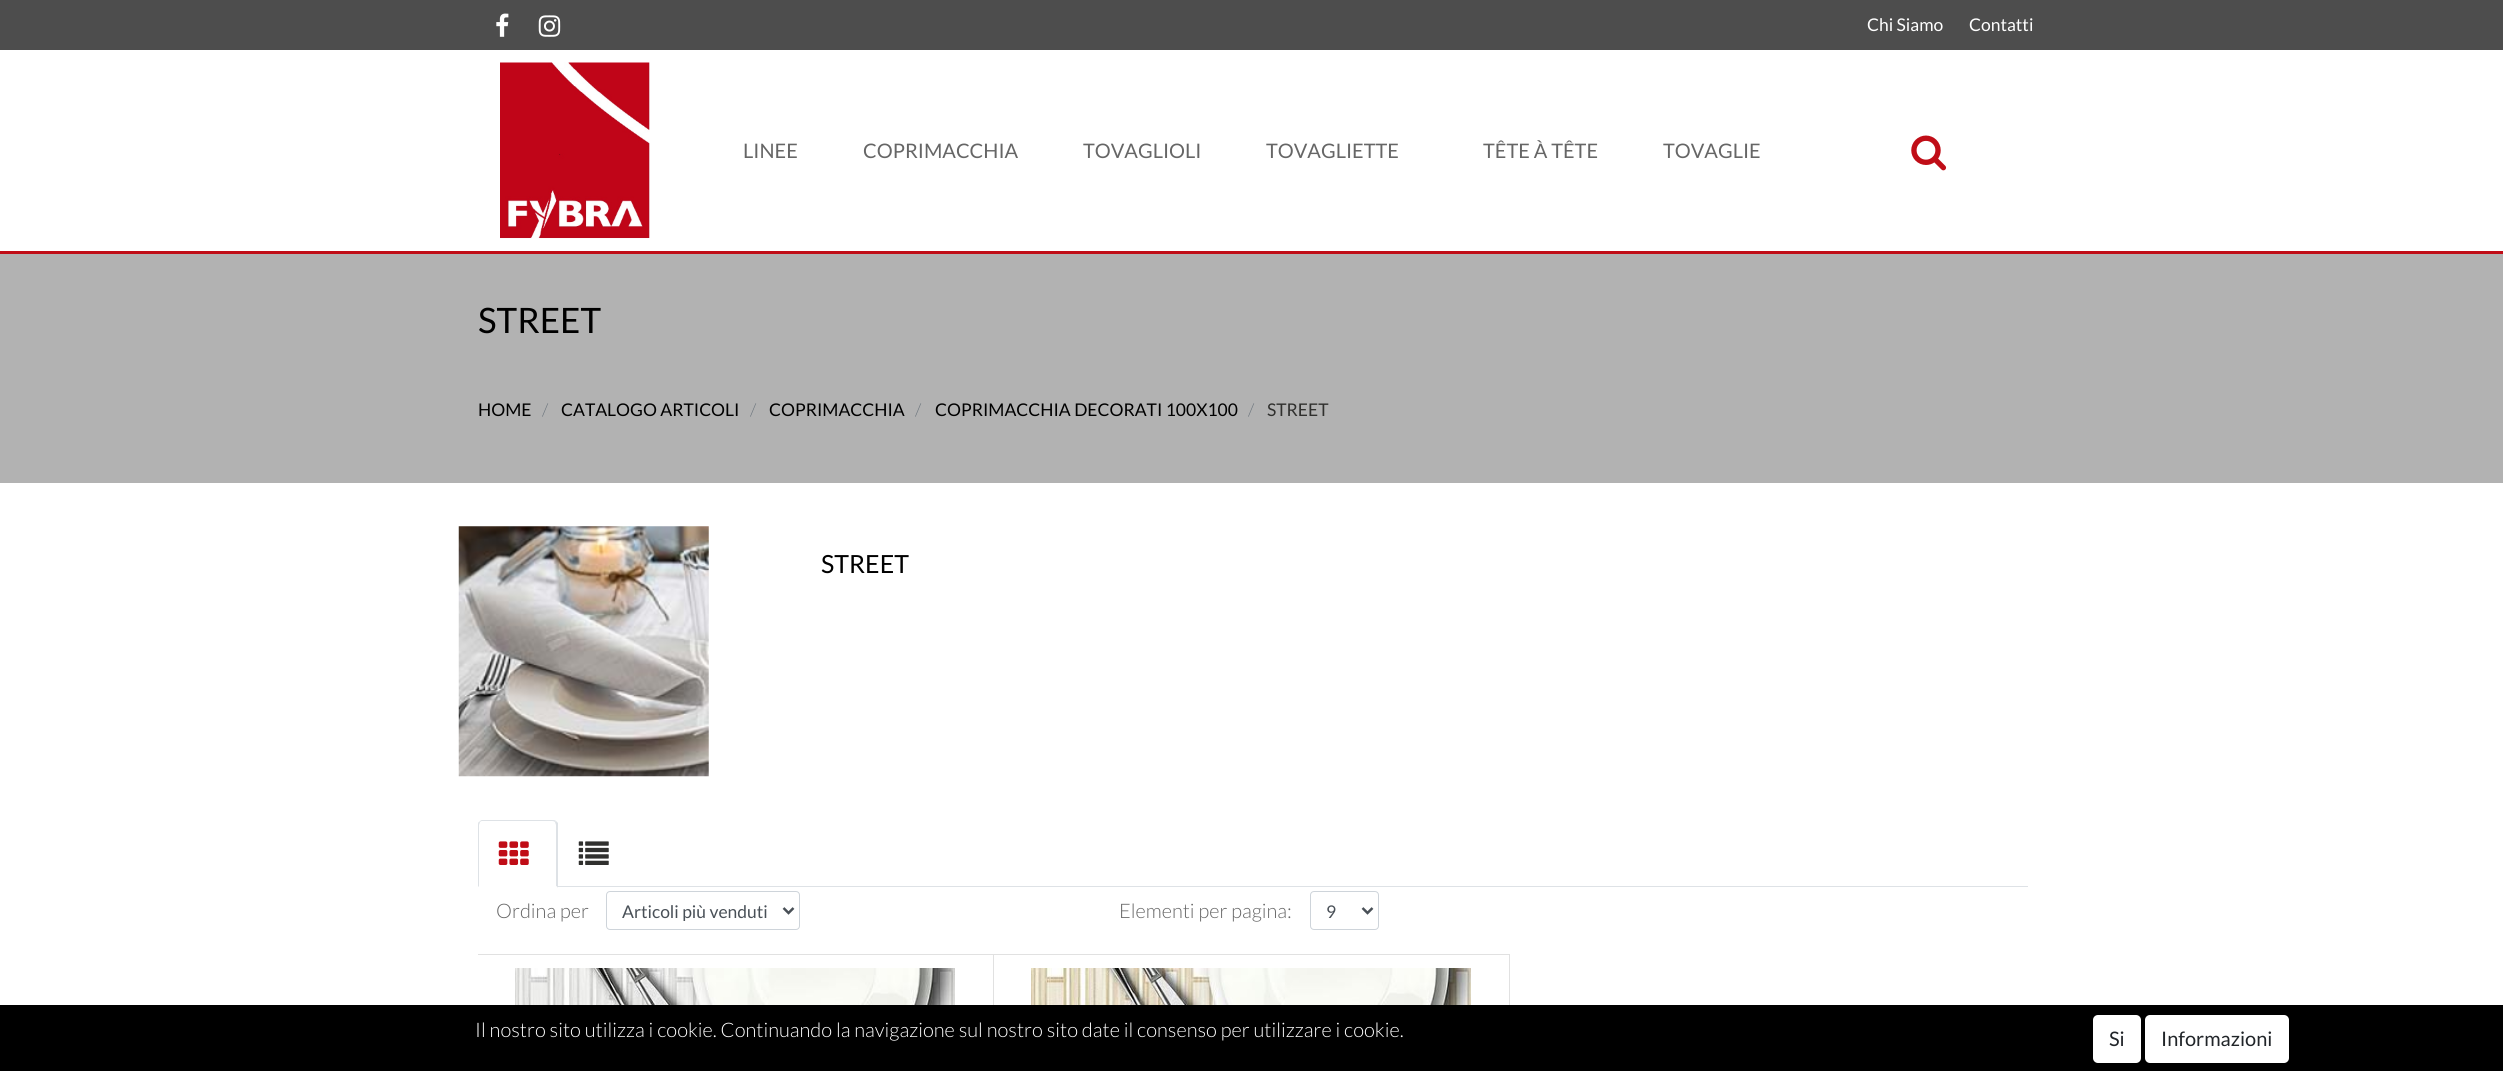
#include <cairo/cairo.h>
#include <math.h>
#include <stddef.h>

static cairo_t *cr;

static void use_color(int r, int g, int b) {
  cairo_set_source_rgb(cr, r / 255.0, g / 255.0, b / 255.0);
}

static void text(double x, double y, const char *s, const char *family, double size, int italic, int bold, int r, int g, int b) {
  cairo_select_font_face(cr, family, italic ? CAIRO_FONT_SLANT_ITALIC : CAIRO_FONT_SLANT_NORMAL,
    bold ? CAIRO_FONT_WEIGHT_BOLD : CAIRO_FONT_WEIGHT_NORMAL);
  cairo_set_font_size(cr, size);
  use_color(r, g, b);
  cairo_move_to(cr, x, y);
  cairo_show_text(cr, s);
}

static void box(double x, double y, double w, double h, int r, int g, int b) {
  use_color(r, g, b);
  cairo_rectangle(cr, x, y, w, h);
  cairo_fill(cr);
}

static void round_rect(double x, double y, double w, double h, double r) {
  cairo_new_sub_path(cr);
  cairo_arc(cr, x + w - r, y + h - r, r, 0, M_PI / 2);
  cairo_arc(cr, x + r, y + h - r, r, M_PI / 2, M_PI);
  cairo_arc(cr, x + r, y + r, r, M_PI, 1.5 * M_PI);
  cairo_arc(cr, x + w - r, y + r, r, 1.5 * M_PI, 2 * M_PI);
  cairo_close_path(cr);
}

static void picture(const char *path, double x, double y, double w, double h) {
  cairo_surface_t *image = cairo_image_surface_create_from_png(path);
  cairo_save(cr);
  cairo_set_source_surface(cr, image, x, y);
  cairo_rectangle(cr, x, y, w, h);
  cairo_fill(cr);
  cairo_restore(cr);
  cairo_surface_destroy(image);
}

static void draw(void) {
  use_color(255, 255, 255);
  cairo_paint(cr);
  box(0, 0, 2503, 50, 77, 77, 77);
  picture("img_01.png", 496, 13, 13, 24);
  picture("img_02.png", 538, 15, 23, 22);
  box(0, 251, 2503, 3, 192, 13, 23);
  picture("img_03.png", 500, 62, 150, 177);
  picture("img_04.png", 1911, 135, 36, 36);
  box(0, 254, 2503, 229, 178, 178, 178);
  picture("img_05.png", 458, 526, 251, 251);
  box(558, 886, 1470, 1, 222, 226, 230);
  cairo_new_path(cr);
  cairo_move_to(cr, 482, 820);
  cairo_curve_to(cr, 481, 820, 480, 821, 479, 822);
  cairo_line_to(cr, 480, 822);
  cairo_curve_to(cr, 480, 822, 481, 821, 482, 821);
  cairo_line_to(cr, 552, 821);
  cairo_curve_to(cr, 554, 821, 555, 822, 555, 822);
  cairo_line_to(cr, 556, 821);
  cairo_curve_to(cr, 555, 820, 554, 820, 552, 820);
  cairo_close_path(cr);
  cairo_fill(cr);
  cairo_new_path(cr);
  cairo_move_to(cr, 556, 821);
  cairo_line_to(cr, 558, 823);
  cairo_line_to(cr, 558, 888);
  cairo_line_to(cr, 556, 886);
  cairo_line_to(cr, 556, 825);
  cairo_line_to(cr, 555, 822);
  cairo_close_path(cr);
  cairo_fill(cr);
  use_color(255, 255, 255);
  cairo_new_path(cr);
  cairo_move_to(cr, 558, 888);
  cairo_line_to(cr, 478, 888);
  cairo_line_to(cr, 479, 886);
  cairo_line_to(cr, 556, 886);
  cairo_close_path(cr);
  cairo_fill(cr);
  use_color(222, 226, 230);
  cairo_new_path(cr);
  cairo_move_to(cr, 479, 822);
  cairo_curve_to(cr, 478, 822, 478, 824, 478, 825);
  cairo_line_to(cr, 478, 887);
  cairo_line_to(cr, 479, 886);
  cairo_line_to(cr, 479, 825);
  cairo_line_to(cr, 480, 822);
  cairo_close_path(cr);
  cairo_fill(cr);
  picture("img_06.png", 498, 841, 31, 24);
  picture("img_07.png", 578, 841, 31, 24);
  round_rect(606.5, 891.5, 193, 38, 3.5);
  use_color(206, 212, 218);
  cairo_set_line_width(cr, 1);
  cairo_stroke(cr);
  cairo_new_path(cr);
  cairo_move_to(cr, 783.5, 908);
  cairo_line_to(cr, 788.5, 913);
  cairo_line_to(cr, 793.5, 908);
  use_color(73, 80, 87);
  cairo_set_line_width(cr, 2.5);
  cairo_stroke(cr);
  round_rect(1310.5, 891.5, 68, 38, 3.5);
  use_color(206, 212, 218);
  cairo_set_line_width(cr, 1);
  cairo_stroke(cr);
  cairo_new_path(cr);
  cairo_move_to(cr, 1362.5, 908);
  cairo_line_to(cr, 1367.5, 913);
  cairo_line_to(cr, 1372.5, 908);
  use_color(73, 80, 87);
  cairo_set_line_width(cr, 2.5);
  cairo_stroke(cr);
  box(478, 954, 1032, 1, 225, 225, 225);
  box(993, 954, 1, 51, 225, 225, 225);
  picture("img_08.png", 515, 968, 440, 37);
  box(1509, 954, 1, 51, 225, 225, 225);
  picture("img_09.png", 1031, 968, 440, 37);
  box(0, 1005, 2503, 66, 0, 0, 0);
  use_color(255, 255, 255);
  round_rect(2093, 1015, 48, 48, 5);
  cairo_fill(cr);
  round_rect(2145, 1015, 144, 48, 5);
  cairo_fill(cr);
  text(1867, 31, "Chi Siamo", "Lato", 17.5, 0, 0, 255, 255, 255);
  text(1969, 31, "Contatti", "Lato", 17.5, 0, 0, 255, 255, 255);
  text(743, 158, "LINEE", "Lato", 20, 0, 0, 102, 102, 102);
  text(863, 158, "COPRIMACCHIA", "Lato", 20, 0, 0, 102, 102, 102);
  text(1083, 158, "TOVAGLIOLI", "Lato", 20, 0, 0, 102, 102, 102);
  text(1266, 158, "TOVAGLIETTE", "Lato", 20, 0, 0, 102, 102, 102);
  text(1483, 158, "TÊTE À TÊTE", "Lato", 20, 0, 0, 102, 102, 102);
  text(1663, 158, "TOVAGLIE", "Lato", 20, 0, 0, 102, 102, 102);
  text(478, 333, "STREET", "Lato", 35, 0, 0, 0, 0, 0);
  text(478, 416, "HOME", "Lato", 17.5, 0, 0, 0, 0, 0);
  text(542, 416, "/", "Lato Light", 17.5, 0, 0, 108, 117, 125);
  text(561, 416, "CATALOGO ARTICOLI", "Lato", 17.5, 0, 0, 0, 0, 0);
  text(750, 416, "/", "Lato Light", 17.5, 0, 0, 108, 117, 125);
  text(769, 416, "COPRIMACCHIA", "Lato", 17.5, 0, 0, 0, 0, 0);
  text(915, 416, "/", "Lato Light", 17.5, 0, 0, 108, 117, 125);
  text(935, 416, "COPRIMACCHIA DECORATI 100X100", "Lato", 17.5, 0, 0, 0, 0, 0);
  text(1248, 416, "/", "Lato Light", 17.5, 0, 0, 108, 117, 125);
  text(1267, 416, "STREET", "Lato", 17.5, 0, 0, 48, 48, 46);
  text(821, 573, "STREET", "Lato", 25, 0, 0, 0, 0, 0);
  text(496, 918, "Ordina per", "Lato Light", 20, 0, 0, 102, 102, 102);
  text(622, 918, "Articoli più venduti", "Lato", 17.5, 0, 0, 73, 80, 87);
  text(1119, 918, "Elementi per pagina:", "Lato Light", 20, 0, 0, 102, 102, 102);
  text(1326, 918, "9", "Lato", 17.5, 0, 0, 73, 80, 87);
  text(475, 1037, "Il nostro sito utilizza i cookie. Continuando la navigazione sul nostro sito date il consenso per utilizzare i cookie.", "Lato Light", 20, 0, 0, 255, 255, 255);
  text(2109, 1046, "Si", "Lato", 20, 0, 0, 33, 37, 41);
  text(2161, 1046, "Informazioni", "Lato", 20, 0, 0, 33, 37, 41);
}

int main(void) {
  cairo_surface_t *surface = cairo_image_surface_create(CAIRO_FORMAT_RGB24, 2503, 1071);
  cr = cairo_create(surface);
  cairo_font_options_t *options = cairo_font_options_create();
  cairo_font_options_set_hint_metrics(options, CAIRO_HINT_METRICS_OFF);
  cairo_font_options_set_hint_style(options, CAIRO_HINT_STYLE_NONE);
  cairo_set_font_options(cr, options);
  cairo_set_miter_limit(cr, 4);
  draw();
  cairo_surface_write_to_png(surface, "out.png");
  cairo_font_options_destroy(options);
  cairo_destroy(cr);
  cairo_surface_destroy(surface);
  return 0;
}
